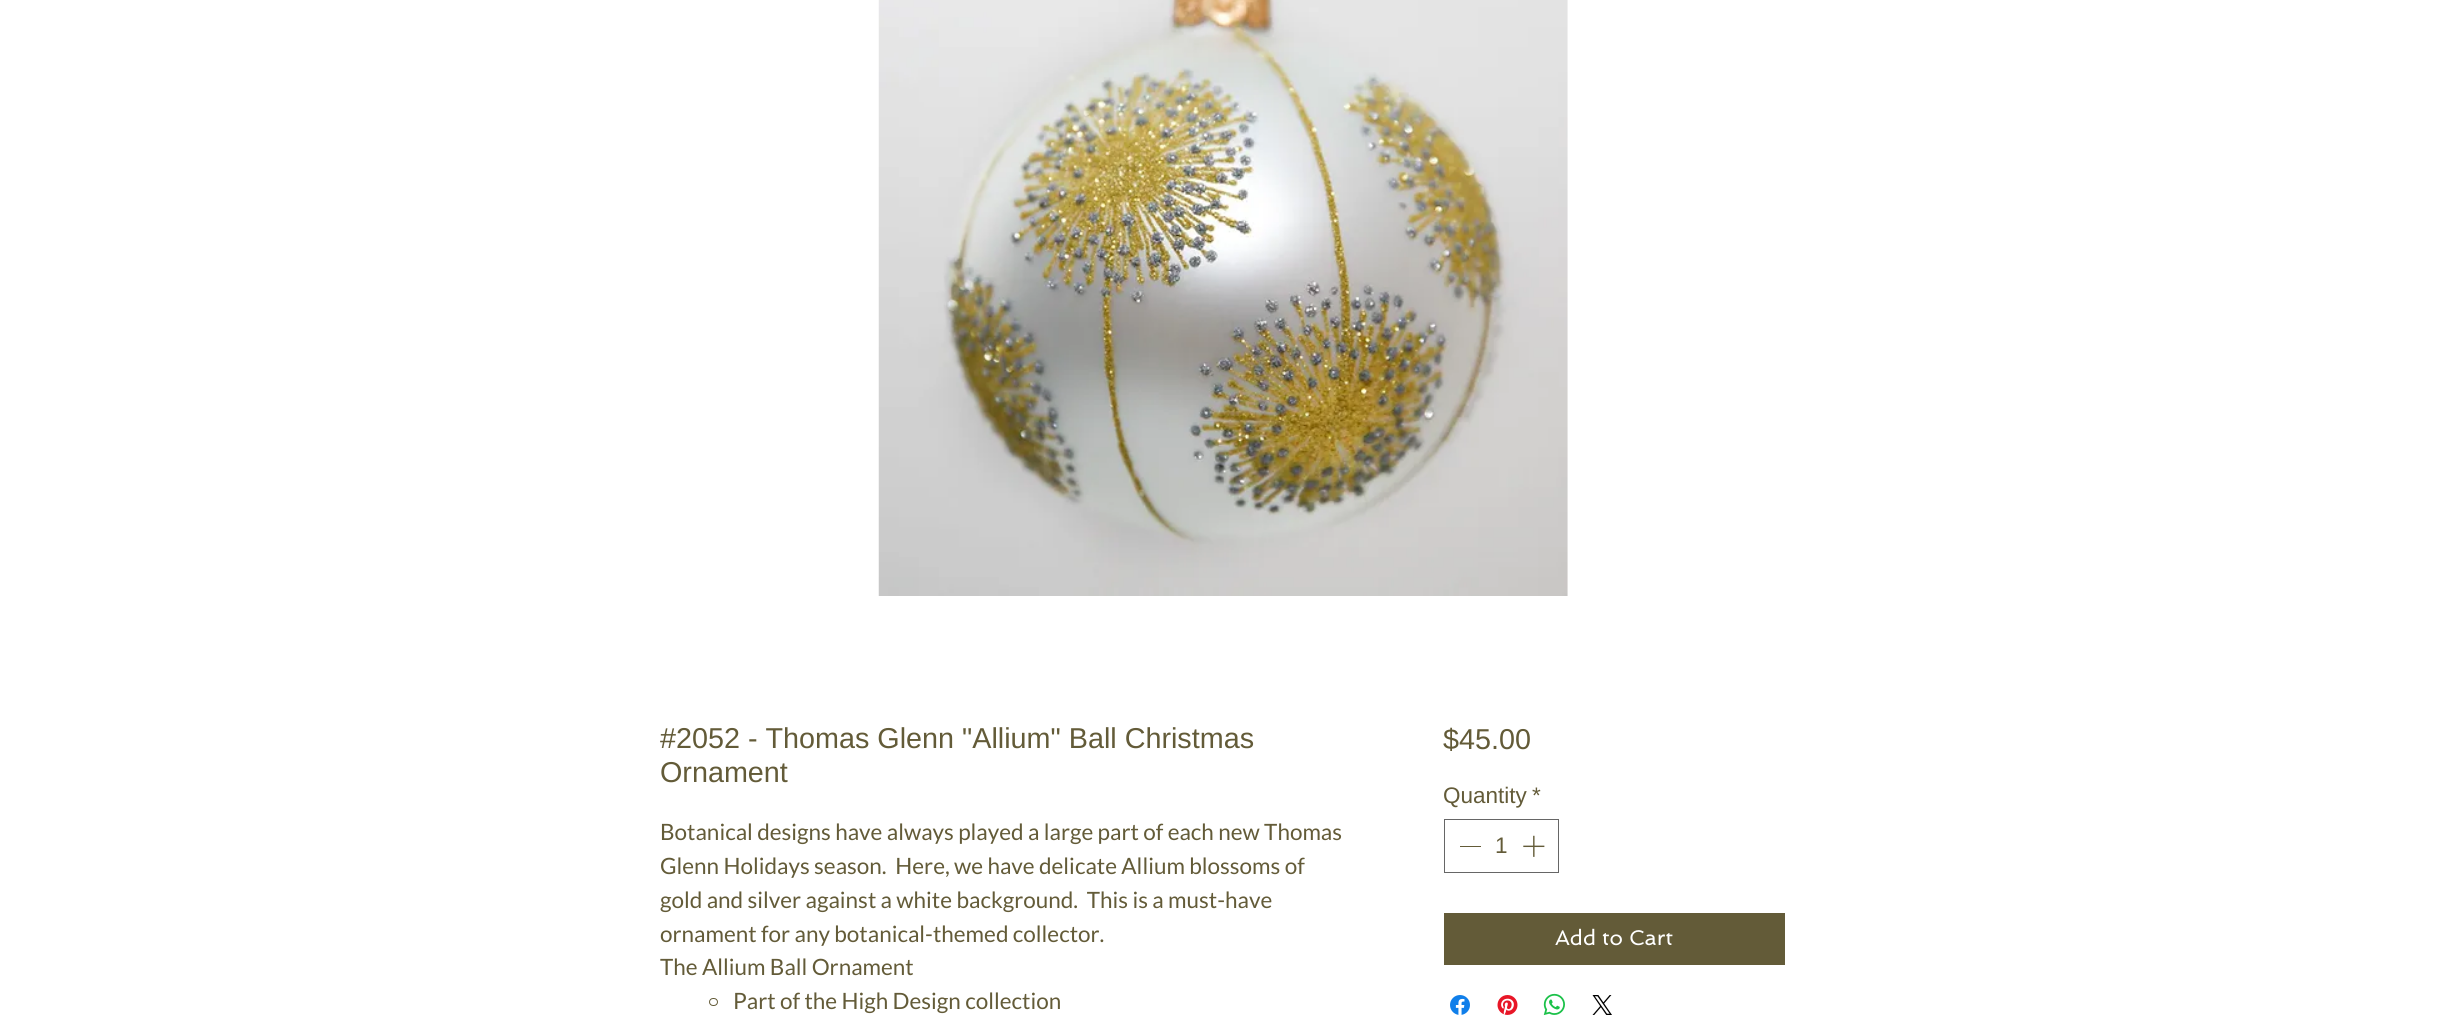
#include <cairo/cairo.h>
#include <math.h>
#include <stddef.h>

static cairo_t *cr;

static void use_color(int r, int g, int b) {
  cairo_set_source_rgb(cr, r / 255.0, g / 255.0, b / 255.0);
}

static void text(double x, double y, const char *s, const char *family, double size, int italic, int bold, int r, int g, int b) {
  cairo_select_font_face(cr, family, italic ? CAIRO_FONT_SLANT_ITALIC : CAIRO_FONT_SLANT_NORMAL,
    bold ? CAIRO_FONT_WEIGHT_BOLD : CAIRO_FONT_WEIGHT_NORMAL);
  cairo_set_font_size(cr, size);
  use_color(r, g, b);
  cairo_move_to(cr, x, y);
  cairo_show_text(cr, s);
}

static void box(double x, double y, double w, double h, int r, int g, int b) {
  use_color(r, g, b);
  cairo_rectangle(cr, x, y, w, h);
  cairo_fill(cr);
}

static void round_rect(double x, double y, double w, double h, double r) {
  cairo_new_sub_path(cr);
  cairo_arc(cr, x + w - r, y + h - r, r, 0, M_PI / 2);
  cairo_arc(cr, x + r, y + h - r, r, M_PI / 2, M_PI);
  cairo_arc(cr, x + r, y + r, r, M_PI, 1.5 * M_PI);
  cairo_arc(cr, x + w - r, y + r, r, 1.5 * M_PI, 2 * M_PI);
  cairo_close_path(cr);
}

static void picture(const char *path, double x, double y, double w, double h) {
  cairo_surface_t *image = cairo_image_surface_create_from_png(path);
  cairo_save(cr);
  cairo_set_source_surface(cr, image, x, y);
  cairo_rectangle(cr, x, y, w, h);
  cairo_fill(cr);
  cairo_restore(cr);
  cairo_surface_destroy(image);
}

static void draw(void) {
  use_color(255, 255, 255);
  cairo_paint(cr);
  picture("img_01.png", 878, 0, 690, 596);
  round_rect(709.5, 998.5, 8, 7, 3.5);
  use_color(99, 91, 56);
  cairo_set_line_width(cr, 1);
  cairo_stroke(cr);
  cairo_rectangle(cr, 1444.5, 819.5, 114, 53);
  use_color(102, 102, 102);
  cairo_stroke(cr);
  box(1460, 846, 21, 1, 99, 91, 56);
  picture("img_02.png", 1523, 835, 22, 22);
  box(1444, 913, 341, 52, 99, 91, 56);
  picture("img_03.png", 1450, 995, 20, 20);
  picture("img_04.png", 1497, 995, 21, 20);
  picture("img_05.png", 1543, 993, 22, 22);
  picture("img_06.png", 1592, 995, 20, 20);
  text(660, 748, "#2052 - Thomas Glenn \"Allium\" Ball Christmas", "Liberation Sans", 28.75, 0, 0, 99, 91, 56);
  text(660, 782, "Ornament", "Liberation Sans", 28.75, 0, 0, 99, 91, 56);
  text(660, 840, "Botanical designs have always played a large part of each new Thomas", "Lato", 22.5, 0, 0, 99, 91, 56);
  text(660, 874, "Glenn Holidays season.  Here, we have delicate Allium blossoms of", "Lato", 22.5, 0, 0, 99, 91, 56);
  text(660, 908, "gold and silver against a white background.  This is a must-have", "Lato", 22.5, 0, 0, 99, 91, 56);
  text(660, 942, "ornament for any botanical-themed collector.", "Lato", 22.5, 0, 0, 99, 91, 56);
  text(660, 975, "The Allium Ball Ornament", "Lato", 22.5, 0, 0, 99, 91, 56);
  text(733, 1009, "Part of the High Design collection", "Lato", 22.5, 0, 0, 99, 91, 56);
  text(1443, 749, "$45.00", "Liberation Sans", 28.75, 0, 0, 99, 91, 56);
  text(1443, 803, "Quantity", "Liberation Sans", 22.5, 0, 0, 99, 91, 56);
  text(1532, 803, "*", "Liberation Sans", 22.5, 0, 0, 99, 91, 56);
  text(1495, 853, "1", "Liberation Sans", 22.5, 0, 0, 99, 91, 56);
  text(1555, 945, "Add to Cart", "Spinnaker", 21.25, 0, 0, 255, 255, 255);
}

int main(void) {
  cairo_surface_t *surface = cairo_image_surface_create(CAIRO_FORMAT_RGB24, 2444, 1024);
  cr = cairo_create(surface);
  cairo_font_options_t *options = cairo_font_options_create();
  cairo_font_options_set_hint_metrics(options, CAIRO_HINT_METRICS_OFF);
  cairo_font_options_set_hint_style(options, CAIRO_HINT_STYLE_NONE);
  cairo_set_font_options(cr, options);
  cairo_set_miter_limit(cr, 4);
  draw();
  cairo_surface_write_to_png(surface, "out.png");
  cairo_font_options_destroy(options);
  cairo_destroy(cr);
  cairo_surface_destroy(surface);
  return 0;
}
